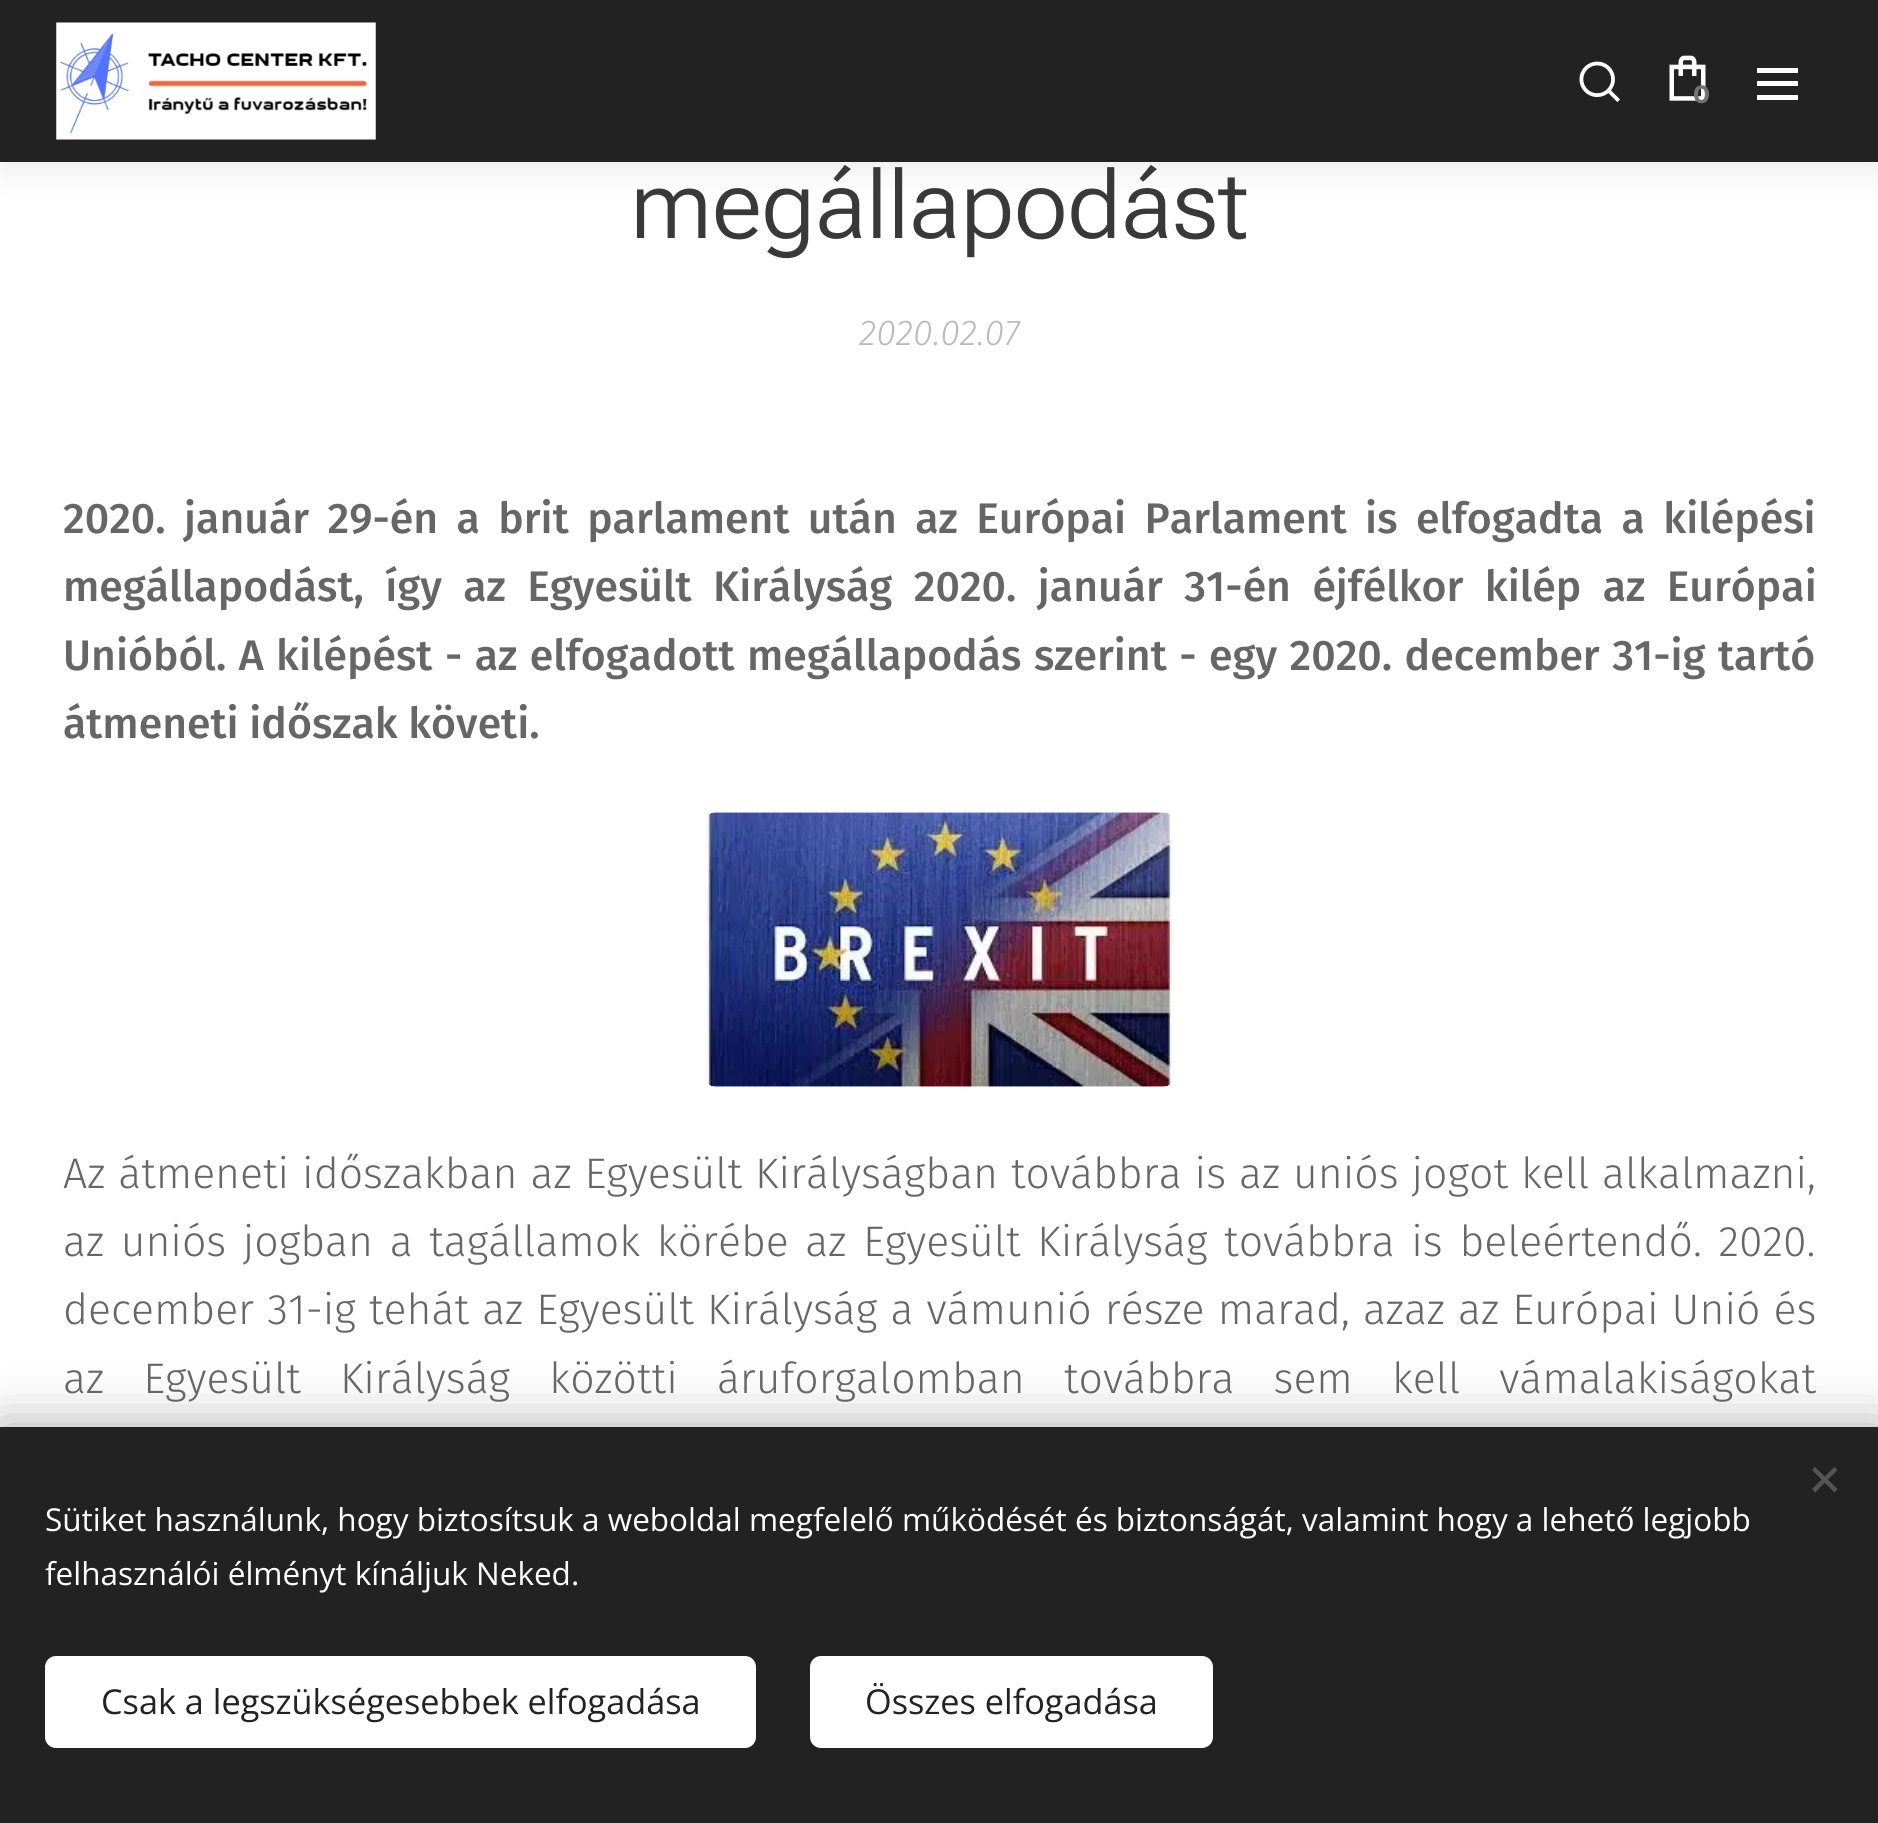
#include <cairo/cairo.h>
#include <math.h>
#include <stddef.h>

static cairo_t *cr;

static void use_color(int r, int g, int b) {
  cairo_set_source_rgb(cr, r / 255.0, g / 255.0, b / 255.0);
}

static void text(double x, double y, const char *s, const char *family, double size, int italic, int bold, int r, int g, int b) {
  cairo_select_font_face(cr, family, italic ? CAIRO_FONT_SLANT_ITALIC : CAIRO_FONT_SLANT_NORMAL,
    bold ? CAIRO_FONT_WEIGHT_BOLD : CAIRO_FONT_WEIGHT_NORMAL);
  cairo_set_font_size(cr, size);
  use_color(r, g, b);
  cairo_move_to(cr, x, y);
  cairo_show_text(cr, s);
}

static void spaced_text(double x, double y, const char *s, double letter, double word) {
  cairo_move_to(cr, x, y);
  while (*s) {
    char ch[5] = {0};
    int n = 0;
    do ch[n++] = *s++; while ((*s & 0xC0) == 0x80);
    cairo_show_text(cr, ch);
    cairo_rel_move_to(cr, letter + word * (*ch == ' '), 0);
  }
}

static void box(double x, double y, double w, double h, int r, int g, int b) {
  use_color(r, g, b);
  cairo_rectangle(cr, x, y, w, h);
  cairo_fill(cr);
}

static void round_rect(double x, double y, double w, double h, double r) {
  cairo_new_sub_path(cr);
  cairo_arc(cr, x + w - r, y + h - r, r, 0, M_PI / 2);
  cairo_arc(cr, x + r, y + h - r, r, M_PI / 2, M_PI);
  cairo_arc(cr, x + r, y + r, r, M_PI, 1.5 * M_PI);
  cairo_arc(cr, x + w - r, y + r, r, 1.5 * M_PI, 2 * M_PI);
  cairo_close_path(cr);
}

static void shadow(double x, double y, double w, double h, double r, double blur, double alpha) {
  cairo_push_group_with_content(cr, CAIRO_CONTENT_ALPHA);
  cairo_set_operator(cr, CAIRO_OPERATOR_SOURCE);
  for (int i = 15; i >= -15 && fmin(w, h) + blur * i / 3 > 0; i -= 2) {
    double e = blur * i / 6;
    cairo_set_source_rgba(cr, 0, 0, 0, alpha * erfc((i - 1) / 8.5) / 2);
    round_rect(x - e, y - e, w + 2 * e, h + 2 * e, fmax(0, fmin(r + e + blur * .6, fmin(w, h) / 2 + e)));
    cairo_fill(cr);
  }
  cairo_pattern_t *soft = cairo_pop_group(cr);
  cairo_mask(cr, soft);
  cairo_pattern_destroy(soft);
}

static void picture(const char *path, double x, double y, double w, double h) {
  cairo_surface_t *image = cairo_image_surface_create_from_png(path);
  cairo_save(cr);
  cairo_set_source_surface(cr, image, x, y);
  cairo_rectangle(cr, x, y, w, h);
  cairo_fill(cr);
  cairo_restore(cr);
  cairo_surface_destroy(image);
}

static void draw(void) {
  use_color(255, 255, 255);
  cairo_paint(cr);
  use_color(0, 0, 0);
  shadow(0, 11, 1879, 162, 0, 17, 0.07);
  box(0, 0, 1878, 162, 34, 34, 34);
  picture("img_01.png", 56, 22, 320, 118);
  picture("img_02.png", 1579, 61, 41, 41);
  picture("img_03.png", 1669, 55, 37, 46);
  box(1757, 81, 41, 5, 255, 255, 255);
  box(1757, 68, 41, 5, 255, 255, 255);
  box(1757, 95, 41, 5, 255, 255, 255);
  picture("img_04.png", 705, 812, 469, 275);
  use_color(0, 0, 0);
  shadow(0, 1427, 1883, 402, 0, 28, 0.33);
  box(0, 1427, 1878, 396, 34, 34, 34);
  use_color(85, 85, 85);
  cairo_new_path(cr);
  cairo_move_to(cr, 1812, 1489);
  cairo_line_to(cr, 1834.5, 1467);
  cairo_line_to(cr, 1837.5, 1470);
  cairo_line_to(cr, 1815, 1492.5);
  cairo_close_path(cr);
  cairo_fill(cr);
  cairo_new_path(cr);
  cairo_move_to(cr, 1815, 1467);
  cairo_line_to(cr, 1837.5, 1489);
  cairo_line_to(cr, 1834.5, 1492.5);
  cairo_line_to(cr, 1812, 1470);
  cairo_close_path(cr);
  cairo_fill(cr);
  use_color(255, 255, 255);
  round_rect(45, 1656, 711, 92, 11);
  cairo_fill(cr);
  round_rect(810, 1656, 403, 92, 11);
  cairo_fill(cr);
  text(1693, 103, "0", "Montserrat", 25, 0, 1, 114, 114, 114);
  text(630, 238, "megállapodást", "Roboto Flex Light", 94.5, 0, 0, 57, 57, 57);
  text(859, 345, "2020.02.07", "Fira Sans Light", 36, 1, 0, 186, 186, 186);
  cairo_select_font_face(cr, "Fira Sans Medium", CAIRO_FONT_SLANT_NORMAL, CAIRO_FONT_WEIGHT_NORMAL);
  cairo_set_font_size(cr, 42.75);
  use_color(102, 102, 102);
  spaced_text(63, 533, "2020. január 29-én a brit parlament után az Európai Parlament is elfogadta a kilépési", 0, 7.75);
  spaced_text(63, 601, "megállapodást, így az Egyesült Királyság 2020. január 31-én éjfélkor kilép az Európai", 0, 10.75);
  spaced_text(63, 670, "Unióból. A kilépést - az elfogadott megállapodás szerint - egy 2020. december 31-ig tartó", 0, 1.8);
  text(63, 738, "átmeneti időszak követi.", "Fira Sans Medium", 42.75, 0, 0, 102, 102, 102);
  cairo_select_font_face(cr, "Fira Sans Light", CAIRO_FONT_SLANT_NORMAL, CAIRO_FONT_WEIGHT_NORMAL);
  spaced_text(63, 1188, "Az átmeneti időszakban az Egyesült Királyságban továbbra is az uniós jogot kell alkalmazni,", 0, 1.1);
  spaced_text(63, 1256, "az uniós jogban a tagállamok körébe az Egyesült Királyság továbbra is beleértendő. 2020.", 0, 4.75);
  spaced_text(63, 1324, "december 31-ig tehát az Egyesült Királyság a vámunió része marad, azaz az Európai Unió és", 0, 1.25);
  spaced_text(63, 1393, "az Egyesült Királyság közötti áruforgalomban továbbra sem kell vámalakiságokat", 0, 27.25);
  text(45, 1531, "Sütiket használunk, hogy biztosítsuk a weboldal megfelelő működését és biztonságát, valamint hogy a lehető legjobb", "Open Sans", 31.5, 0, 0, 255, 255, 255);
  text(45, 1585, "felhasználói élményt kínáljuk Neked.", "Open Sans", 31.5, 0, 0, 255, 255, 255);
  text(101, 1714, "Csak a legszükségesebbek elfogadása", "Open Sans", 34.25, 0, 0, 34, 34, 34);
  text(865, 1714, "Összes elfogadása", "Open Sans", 34.25, 0, 0, 34, 34, 34);
}

int main(void) {
  cairo_surface_t *surface = cairo_image_surface_create(CAIRO_FORMAT_RGB24, 1878, 1823);
  cr = cairo_create(surface);
  cairo_font_options_t *options = cairo_font_options_create();
  cairo_font_options_set_hint_metrics(options, CAIRO_HINT_METRICS_OFF);
  cairo_font_options_set_hint_style(options, CAIRO_HINT_STYLE_NONE);
  cairo_set_font_options(cr, options);
  cairo_set_miter_limit(cr, 4);
  draw();
  cairo_surface_write_to_png(surface, "out.png");
  cairo_font_options_destroy(options);
  cairo_destroy(cr);
  cairo_surface_destroy(surface);
  return 0;
}
